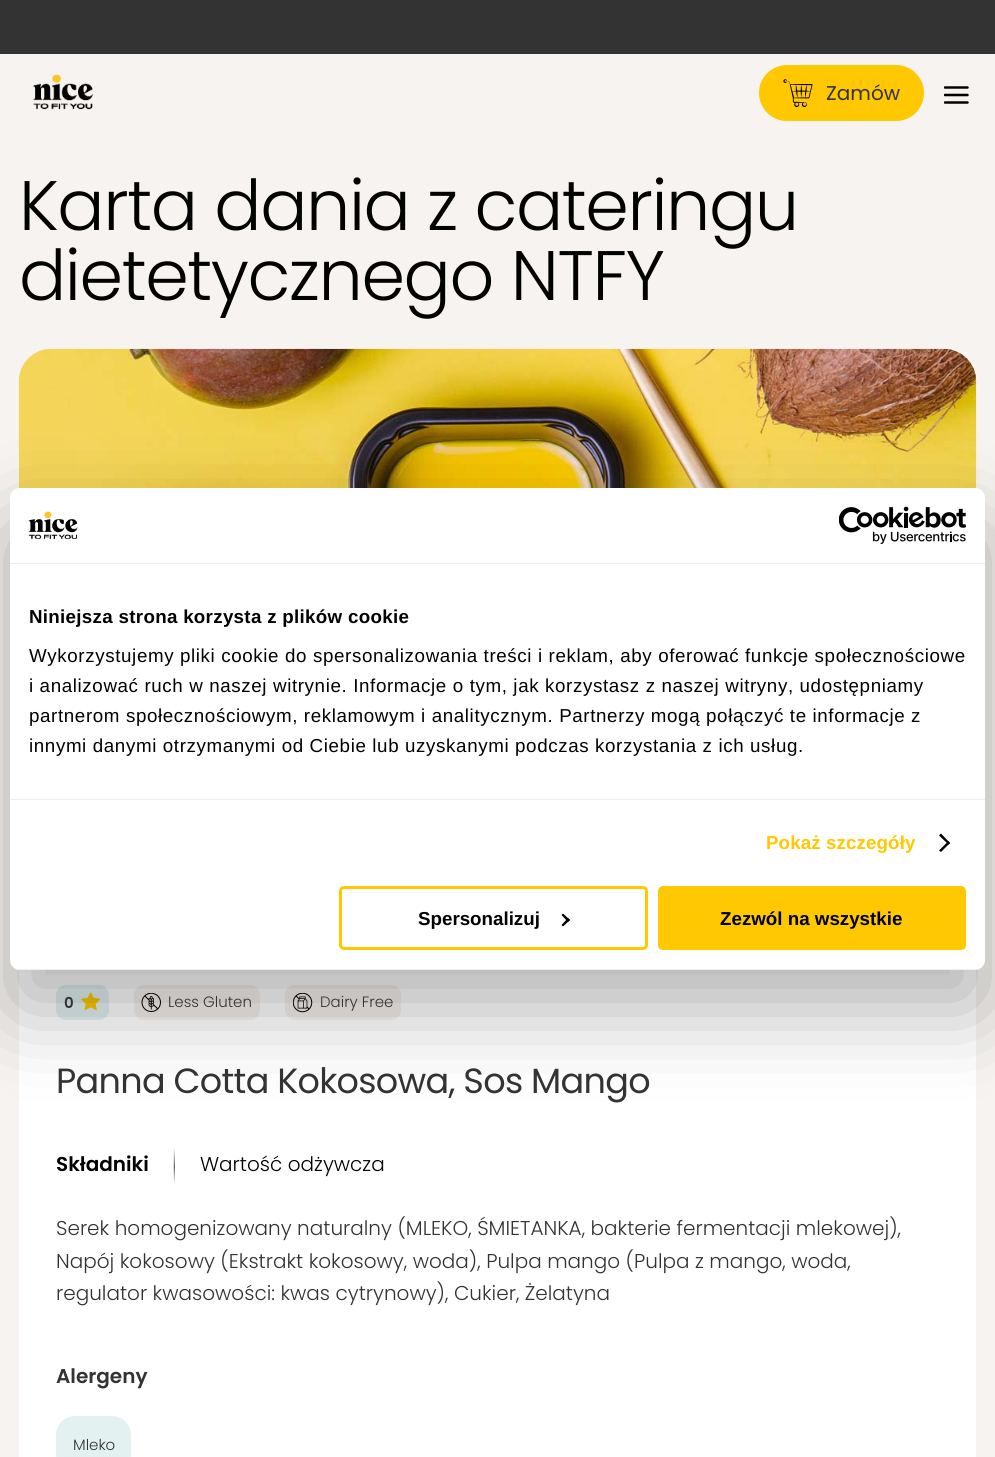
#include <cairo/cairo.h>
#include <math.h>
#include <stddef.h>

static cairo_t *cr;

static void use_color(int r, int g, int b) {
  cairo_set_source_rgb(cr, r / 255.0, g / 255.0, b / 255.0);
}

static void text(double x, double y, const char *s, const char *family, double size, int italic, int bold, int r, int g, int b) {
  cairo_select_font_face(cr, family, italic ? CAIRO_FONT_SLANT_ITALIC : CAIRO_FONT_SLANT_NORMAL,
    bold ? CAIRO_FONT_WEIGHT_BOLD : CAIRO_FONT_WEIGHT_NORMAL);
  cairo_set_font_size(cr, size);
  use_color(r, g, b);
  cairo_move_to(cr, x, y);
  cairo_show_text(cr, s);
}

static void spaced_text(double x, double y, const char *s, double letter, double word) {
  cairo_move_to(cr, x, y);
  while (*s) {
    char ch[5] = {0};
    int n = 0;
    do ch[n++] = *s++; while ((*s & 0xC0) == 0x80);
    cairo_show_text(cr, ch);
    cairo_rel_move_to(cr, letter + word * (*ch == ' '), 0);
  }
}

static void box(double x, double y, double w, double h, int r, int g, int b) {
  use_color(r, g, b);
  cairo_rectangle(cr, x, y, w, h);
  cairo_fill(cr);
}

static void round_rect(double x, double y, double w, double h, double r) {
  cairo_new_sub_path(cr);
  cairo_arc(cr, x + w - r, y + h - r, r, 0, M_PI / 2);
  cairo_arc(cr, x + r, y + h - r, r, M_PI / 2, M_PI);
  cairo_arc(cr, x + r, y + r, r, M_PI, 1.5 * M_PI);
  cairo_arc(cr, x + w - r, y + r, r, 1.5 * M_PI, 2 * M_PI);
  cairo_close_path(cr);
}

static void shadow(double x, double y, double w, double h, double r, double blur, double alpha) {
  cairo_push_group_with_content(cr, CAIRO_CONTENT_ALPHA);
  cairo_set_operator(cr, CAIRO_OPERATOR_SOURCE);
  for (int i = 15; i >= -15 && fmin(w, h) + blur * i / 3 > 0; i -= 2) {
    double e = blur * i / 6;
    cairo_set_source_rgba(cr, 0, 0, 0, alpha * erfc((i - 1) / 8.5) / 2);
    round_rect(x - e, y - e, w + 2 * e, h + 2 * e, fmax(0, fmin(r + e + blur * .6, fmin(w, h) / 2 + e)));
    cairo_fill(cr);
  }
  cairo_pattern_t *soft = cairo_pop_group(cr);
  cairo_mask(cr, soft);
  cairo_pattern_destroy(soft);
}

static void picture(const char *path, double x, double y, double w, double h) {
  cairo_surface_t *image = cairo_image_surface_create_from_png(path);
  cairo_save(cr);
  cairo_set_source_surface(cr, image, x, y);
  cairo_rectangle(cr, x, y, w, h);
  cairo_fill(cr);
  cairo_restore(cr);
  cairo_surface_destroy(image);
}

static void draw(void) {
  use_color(246, 243, 240);
  cairo_paint(cr);
  box(0, 0, 995, 54, 51, 51, 51);
  picture("img_01.png", 33, 74, 60, 36);
  use_color(255, 200, 0);
  round_rect(759, 65, 165, 56, 28);
  cairo_fill(cr);
  picture("img_02.png", 783, 79, 30, 29);
  cairo_save(cr);
  cairo_rectangle(cr, 944, 86, 25, 18);
  cairo_clip(cr);
  cairo_new_path(cr);
  cairo_move_to(cr, 945, 95);
  cairo_line_to(cr, 967.5, 95);
  cairo_move_to(cr, 945, 87.5);
  cairo_line_to(cr, 967.5, 87.5);
  cairo_move_to(cr, 945, 102.5);
  cairo_line_to(cr, 967.5, 102.5);
  use_color(0, 0, 0);
  cairo_set_line_width(cr, 2.5);
  cairo_set_line_cap(cr, CAIRO_LINE_CAP_ROUND);
  cairo_set_line_join(cr, CAIRO_LINE_JOIN_ROUND);
  cairo_stroke(cr);
  cairo_restore(cr);
  use_color(255, 255, 255);
  round_rect(19, 349, 957, 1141, 33);
  cairo_fill(cr);
  picture("img_03.png", 18, 348, 959, 141);
  use_color(227, 242, 241);
  round_rect(56, 985, 53, 35, 10);
  cairo_fill(cr);
  picture("img_04.png", 81, 992, 19, 18);
  use_color(245, 241, 238);
  round_rect(134, 985, 126, 35, 10);
  cairo_fill(cr);
  picture("img_05.png", 141, 993, 20, 19);
  round_rect(285, 985, 116, 35, 10);
  cairo_fill(cr);
  picture("img_06.png", 293, 993, 20, 20);
  picture("img_07.png", 173, 1148, 2, 36);
  use_color(227, 242, 241);
  round_rect(56, 1416, 75, 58, 19);
  cairo_fill(cr);
  use_color(0, 0, 0);
  shadow(10, 528, 975, 482, 10, 42.5, 0.3);
  use_color(255, 255, 255);
  round_rect(10, 488, 975, 482, 10);
  cairo_fill(cr);
  box(10, 563, 975, 1, 238, 238, 238);
  picture("img_08.png", 28, 511, 50, 28);
  picture("img_09.png", 839, 506, 127, 38);
  box(10, 799, 975, 1, 238, 238, 238);
  use_color(0, 0, 0);
  cairo_new_path(cr);
  cairo_move_to(cr, 941, 833.5);
  cairo_line_to(cr, 950, 843);
  cairo_line_to(cr, 948.5, 844.5);
  cairo_line_to(cr, 939, 835.5);
  cairo_close_path(cr);
  cairo_fill(cr);
  cairo_new_path(cr);
  cairo_move_to(cr, 948.5, 841);
  cairo_line_to(cr, 950, 843);
  cairo_line_to(cr, 941, 852);
  cairo_line_to(cr, 939, 850.5);
  cairo_close_path(cr);
  cairo_fill(cr);
  cairo_save(cr);
  round_rect(10, 488, 975, 482, 10);
  cairo_clip(cr);
  box(10, 969, 975, 1, 238, 238, 238);
  cairo_restore(cr);
  round_rect(340.5, 887.5, 306, 61, 3.5);
  use_color(255, 200, 0);
  cairo_set_line_width(cr, 3);
  cairo_stroke(cr);
  use_color(0, 0, 0);
  cairo_new_path(cr);
  cairo_move_to(cr, 563, 913.5);
  cairo_line_to(cr, 570, 920);
  cairo_line_to(cr, 568, 922);
  cairo_line_to(cr, 561.5, 915);
  cairo_close_path(cr);
  cairo_fill(cr);
  cairo_new_path(cr);
  cairo_move_to(cr, 568, 918);
  cairo_line_to(cr, 570, 920);
  cairo_line_to(cr, 563, 926.5);
  cairo_line_to(cr, 561.5, 925);
  cairo_close_path(cr);
  cairo_fill(cr);
  use_color(255, 200, 0);
  round_rect(659.5, 887.5, 305, 61, 3.5);
  cairo_fill_preserve(cr);
  cairo_stroke(cr);
  text(826, 100, "Zamów", "Poppins", 20, 0, 0, 51, 51, 51);
  cairo_select_font_face(cr, "Poppins Light", CAIRO_FONT_SLANT_NORMAL, CAIRO_FONT_WEIGHT_NORMAL);
  cairo_set_font_size(cr, 70);
  use_color(1, 1, 0);
  spaced_text(19, 230, "Karta dania z cateringu", -1.4, 0);
  spaced_text(19, 300, "dietetycznego NTFY", -1.4, 0);
  text(64, 1008, "0", "Poppins SemiBold", 15, 0, 0, 51, 51, 51);
  text(168, 1007, "Less Gluten", "Poppins Light", 15, 0, 0, 51, 51, 51);
  text(320, 1007, "Dairy Free", "Poppins Light", 15, 0, 0, 51, 51, 51);
  cairo_select_font_face(cr, "Poppins", CAIRO_FONT_SLANT_NORMAL, CAIRO_FONT_WEIGHT_NORMAL);
  cairo_set_font_size(cr, 35);
  spaced_text(56, 1093, "Panna Cotta Kokosowa, Sos Mango", -0.7, 0);
  text(56, 1171, "Składniki", "Poppins SemiBold", 20, 0, 0, 1, 1, 0);
  text(200, 1171, "Wartość odżywcza", "Poppins Light", 20, 0, 0, 1, 1, 0);
  text(56, 1235, "Serek homogenizowany naturalny (MLEKO, ŚMIETANKA, bakterie fermentacji mlekowej),", "Poppins Light", 20, 0, 0, 51, 51, 51);
  text(56, 1268, "Napój kokosowy (Ekstrakt kokosowy, woda), Pulpa mango (Pulpa z mango, woda,", "Poppins Light", 20, 0, 0, 51, 51, 51);
  text(56, 1300, "regulator kwasowości: kwas cytrynowy), Cukier, Żelatyna", "Poppins Light", 20, 0, 0, 51, 51, 51);
  text(56, 1383, "Alergeny", "Poppins SemiBold", 20, 0, 0, 51, 51, 51);
  text(73, 1450, "Mleko", "Poppins Light", 15, 0, 0, 51, 51, 51);
  cairo_select_font_face(cr, "Liberation Sans", CAIRO_FONT_SLANT_NORMAL, CAIRO_FONT_WEIGHT_BOLD);
  cairo_set_font_size(cr, 18.75);
  use_color(1, 1, 0);
  spaced_text(29, 623, "Niniejsza strona korzysta z plików cookie", 0.3, 0);
  cairo_select_font_face(cr, "Liberation Sans", CAIRO_FONT_SLANT_NORMAL, CAIRO_FONT_WEIGHT_NORMAL);
  spaced_text(29, 662, "Wykorzystujemy pliki cookie do spersonalizowania treści i reklam, aby oferować funkcje społecznościowe", 0.62, 0);
  spaced_text(29, 692, "i analizować ruch w naszej witrynie. Informacje o tym, jak korzystasz z naszej witryny, udostępniamy", 0.62, 0);
  spaced_text(29, 722, "partnerom społecznościowym, reklamowym i analitycznym. Partnerzy mogą połączyć te informacje z", 0.62, 0);
  spaced_text(29, 752, "innymi danymi otrzymanymi od Ciebie lub uzyskanymi podczas korzystania z ich usług.", 0.62, 0);
  cairo_select_font_face(cr, "Liberation Sans", CAIRO_FONT_SLANT_NORMAL, CAIRO_FONT_WEIGHT_BOLD);
  use_color(255, 200, 0);
  spaced_text(766, 849, "Pokaż szczegóły", 0.1, 0);
  text(418, 925, "Spersonalizuj", "Liberation Sans", 18.75, 0, 1, 1, 1, 0);
  text(720, 925, "Zezwól na wszystkie", "Liberation Sans", 18.75, 0, 1, 1, 1, 0);
}

int main(void) {
  cairo_surface_t *surface = cairo_image_surface_create(CAIRO_FORMAT_RGB24, 995, 1457);
  cr = cairo_create(surface);
  cairo_font_options_t *options = cairo_font_options_create();
  cairo_font_options_set_hint_metrics(options, CAIRO_HINT_METRICS_OFF);
  cairo_font_options_set_hint_style(options, CAIRO_HINT_STYLE_NONE);
  cairo_set_font_options(cr, options);
  cairo_set_miter_limit(cr, 4);
  draw();
  cairo_surface_write_to_png(surface, "out.png");
  cairo_font_options_destroy(options);
  cairo_destroy(cr);
  cairo_surface_destroy(surface);
  return 0;
}
